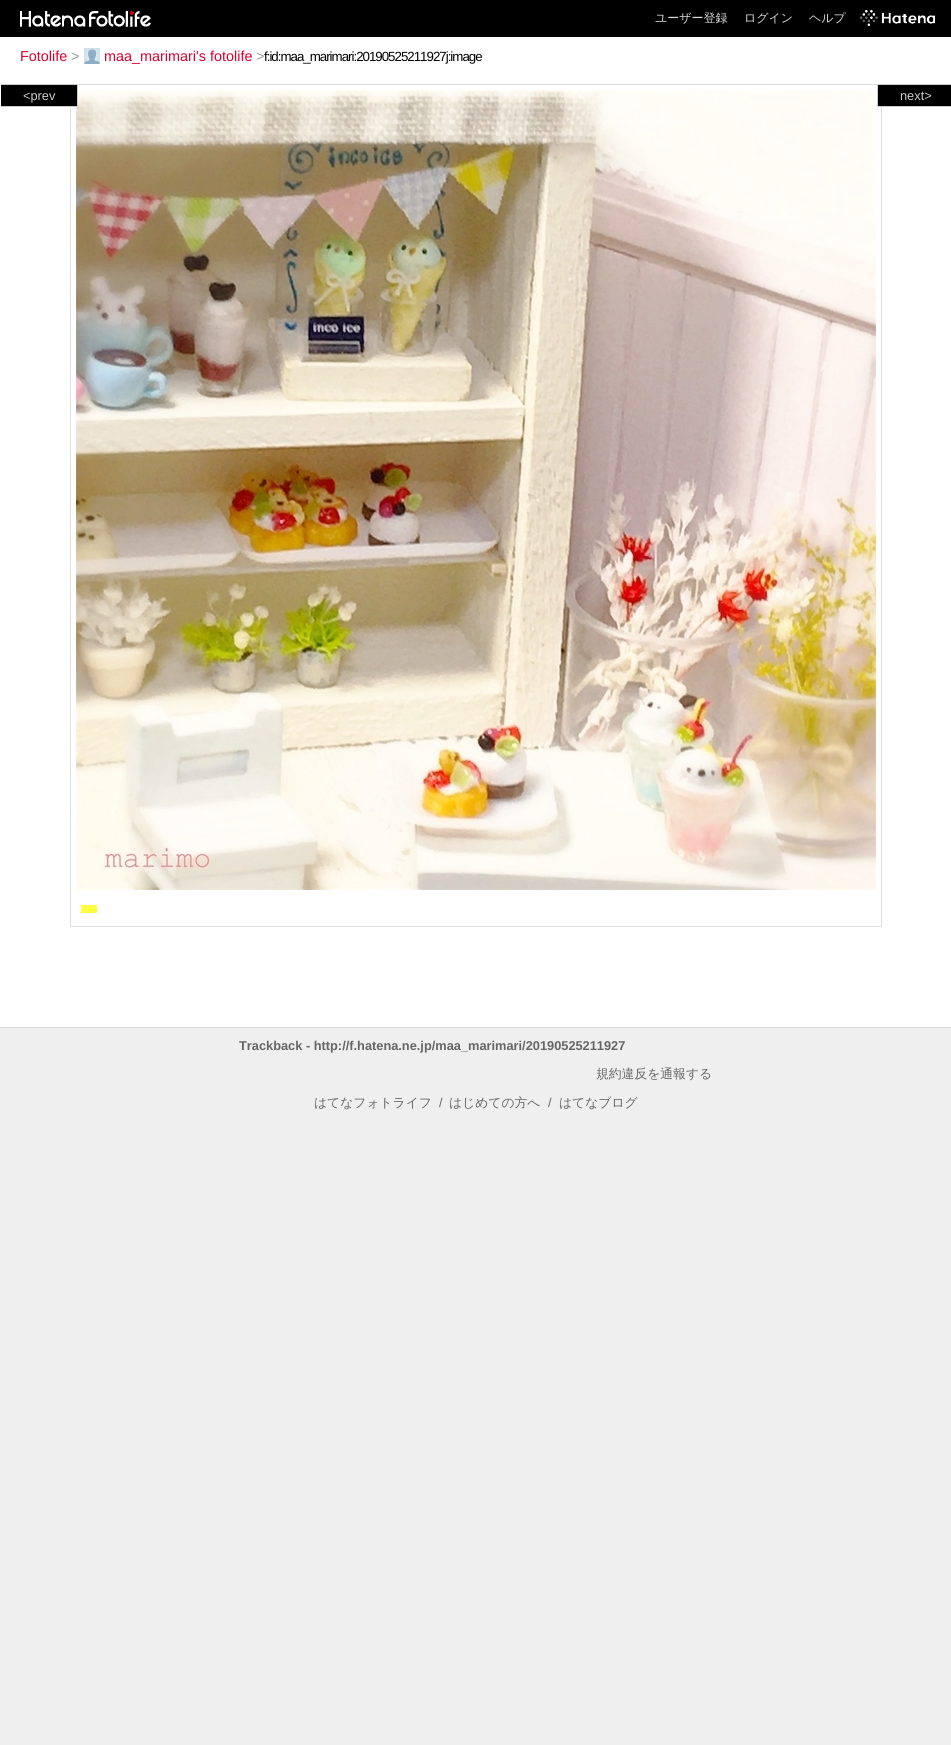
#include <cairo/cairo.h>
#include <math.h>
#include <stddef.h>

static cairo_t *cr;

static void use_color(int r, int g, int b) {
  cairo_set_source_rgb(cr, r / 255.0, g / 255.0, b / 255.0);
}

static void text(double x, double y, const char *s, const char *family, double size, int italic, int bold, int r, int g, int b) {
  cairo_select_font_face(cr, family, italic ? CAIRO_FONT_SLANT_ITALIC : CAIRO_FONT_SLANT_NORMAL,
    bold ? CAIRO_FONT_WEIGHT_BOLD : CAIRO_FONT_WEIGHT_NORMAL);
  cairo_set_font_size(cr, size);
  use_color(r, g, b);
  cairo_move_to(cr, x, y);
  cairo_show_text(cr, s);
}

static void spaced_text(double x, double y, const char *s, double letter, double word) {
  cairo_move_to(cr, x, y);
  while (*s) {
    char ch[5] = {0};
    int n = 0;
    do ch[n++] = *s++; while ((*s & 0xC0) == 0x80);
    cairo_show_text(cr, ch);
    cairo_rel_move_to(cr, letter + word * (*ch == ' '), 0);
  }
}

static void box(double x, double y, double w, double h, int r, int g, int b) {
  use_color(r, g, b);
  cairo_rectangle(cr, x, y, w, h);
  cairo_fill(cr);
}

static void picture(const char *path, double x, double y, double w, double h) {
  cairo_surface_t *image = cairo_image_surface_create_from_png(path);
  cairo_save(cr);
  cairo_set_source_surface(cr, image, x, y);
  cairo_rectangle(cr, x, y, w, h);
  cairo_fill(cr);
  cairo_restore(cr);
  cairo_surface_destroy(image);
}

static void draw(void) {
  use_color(239, 239, 239);
  cairo_paint(cr);
  box(0, 0, 951, 37, 0, 0, 0);
  picture("img_01.png", 20, 11, 66, 16);
  picture("img_02.png", 89, 11, 62, 16);
  picture("img_03.png", 860, 10, 75, 16);
  box(0, 37, 951, 990, 255, 255, 255);
  picture("img_04.png", 84, 48, 16, 16);
  box(0, 1027, 951, 1, 222, 222, 222);
  cairo_rectangle(cr, 70.5, 84.5, 811, 842);
  cairo_set_line_width(cr, 1);
  cairo_stroke(cr);
  picture("img_05.png", 76, 90, 800, 800);
  box(1, 85, 76, 21, 0, 0, 0);
  box(1, 84, 77, 1, 204, 204, 204);
  box(77, 84, 1, 23, 204, 204, 204);
  box(1, 106, 77, 1, 204, 204, 204);
  box(81, 905, 16, 8, 255, 255, 64);
  box(878, 85, 73, 21, 0, 0, 0);
  box(877, 84, 74, 1, 204, 204, 204);
  box(877, 106, 74, 1, 204, 204, 204);
  box(877, 84, 1, 23, 204, 204, 204);
  text(655, 22, "ユーザー登録", "WenQuanYi Zen Hei Medium", 12, 0, 0, 221, 221, 221);
  text(744, 22, "ログイン", "WenQuanYi Zen Hei Medium", 12, 0, 0, 221, 221, 221);
  text(809, 22, "ヘルプ", "WenQuanYi Zen Hei Medium", 12, 0, 0, 221, 221, 221);
  text(20, 61, "Fotolife", "Liberation Sans", 14.4, 0, 0, 222, 0, 47);
  text(71, 61, ">", "Liberation Sans", 14.4, 0, 0, 153, 153, 153);
  text(104, 61, "maa_marimari's fotolife", "Liberation Sans", 14.4, 0, 0, 222, 0, 47);
  text(256, 61, ">", "Liberation Sans", 14.4, 0, 0, 153, 153, 153);
  cairo_set_font_size(cr, 13.3);
  use_color(0, 0, 0);
  spaced_text(264, 61, "f:id:maa_marimari:20190525211927j:image", -1, 0);
  text(23, 100, "<prev", "Liberation Sans", 12.8, 0, 0, 204, 204, 204);
  text(900, 100, "next>", "Liberation Sans", 12.8, 0, 0, 204, 204, 204);
  text(239, 1050, "Trackback - http://f.hatena.ne.jp/maa_marimari/20190525211927", "Liberation Sans", 12.8, 0, 1, 102, 102, 102);
  text(596, 1078, "規約違反を通報する", "WenQuanYi Zen Hei Medium", 12.8, 0, 0, 102, 102, 102);
  text(314, 1107, "はてなフォトライフ", "WenQuanYi Zen Hei Medium", 12.8, 0, 0, 102, 102, 102);
  text(439, 1107, "/", "Liberation Sans", 12.8, 0, 0, 102, 102, 102);
  text(449, 1107, "はじめての方へ", "WenQuanYi Zen Hei Medium", 12.8, 0, 0, 102, 102, 102);
  text(548, 1107, "/", "Liberation Sans", 12.8, 0, 0, 102, 102, 102);
  text(559, 1107, "はてなブログ", "WenQuanYi Zen Hei Medium", 12.8, 0, 0, 102, 102, 102);
}

int main(void) {
  cairo_surface_t *surface = cairo_image_surface_create(CAIRO_FORMAT_RGB24, 951, 1745);
  cr = cairo_create(surface);
  cairo_font_options_t *options = cairo_font_options_create();
  cairo_font_options_set_hint_metrics(options, CAIRO_HINT_METRICS_OFF);
  cairo_font_options_set_hint_style(options, CAIRO_HINT_STYLE_NONE);
  cairo_set_font_options(cr, options);
  cairo_set_miter_limit(cr, 4);
  draw();
  cairo_surface_write_to_png(surface, "out.png");
  cairo_font_options_destroy(options);
  cairo_destroy(cr);
  cairo_surface_destroy(surface);
  return 0;
}
